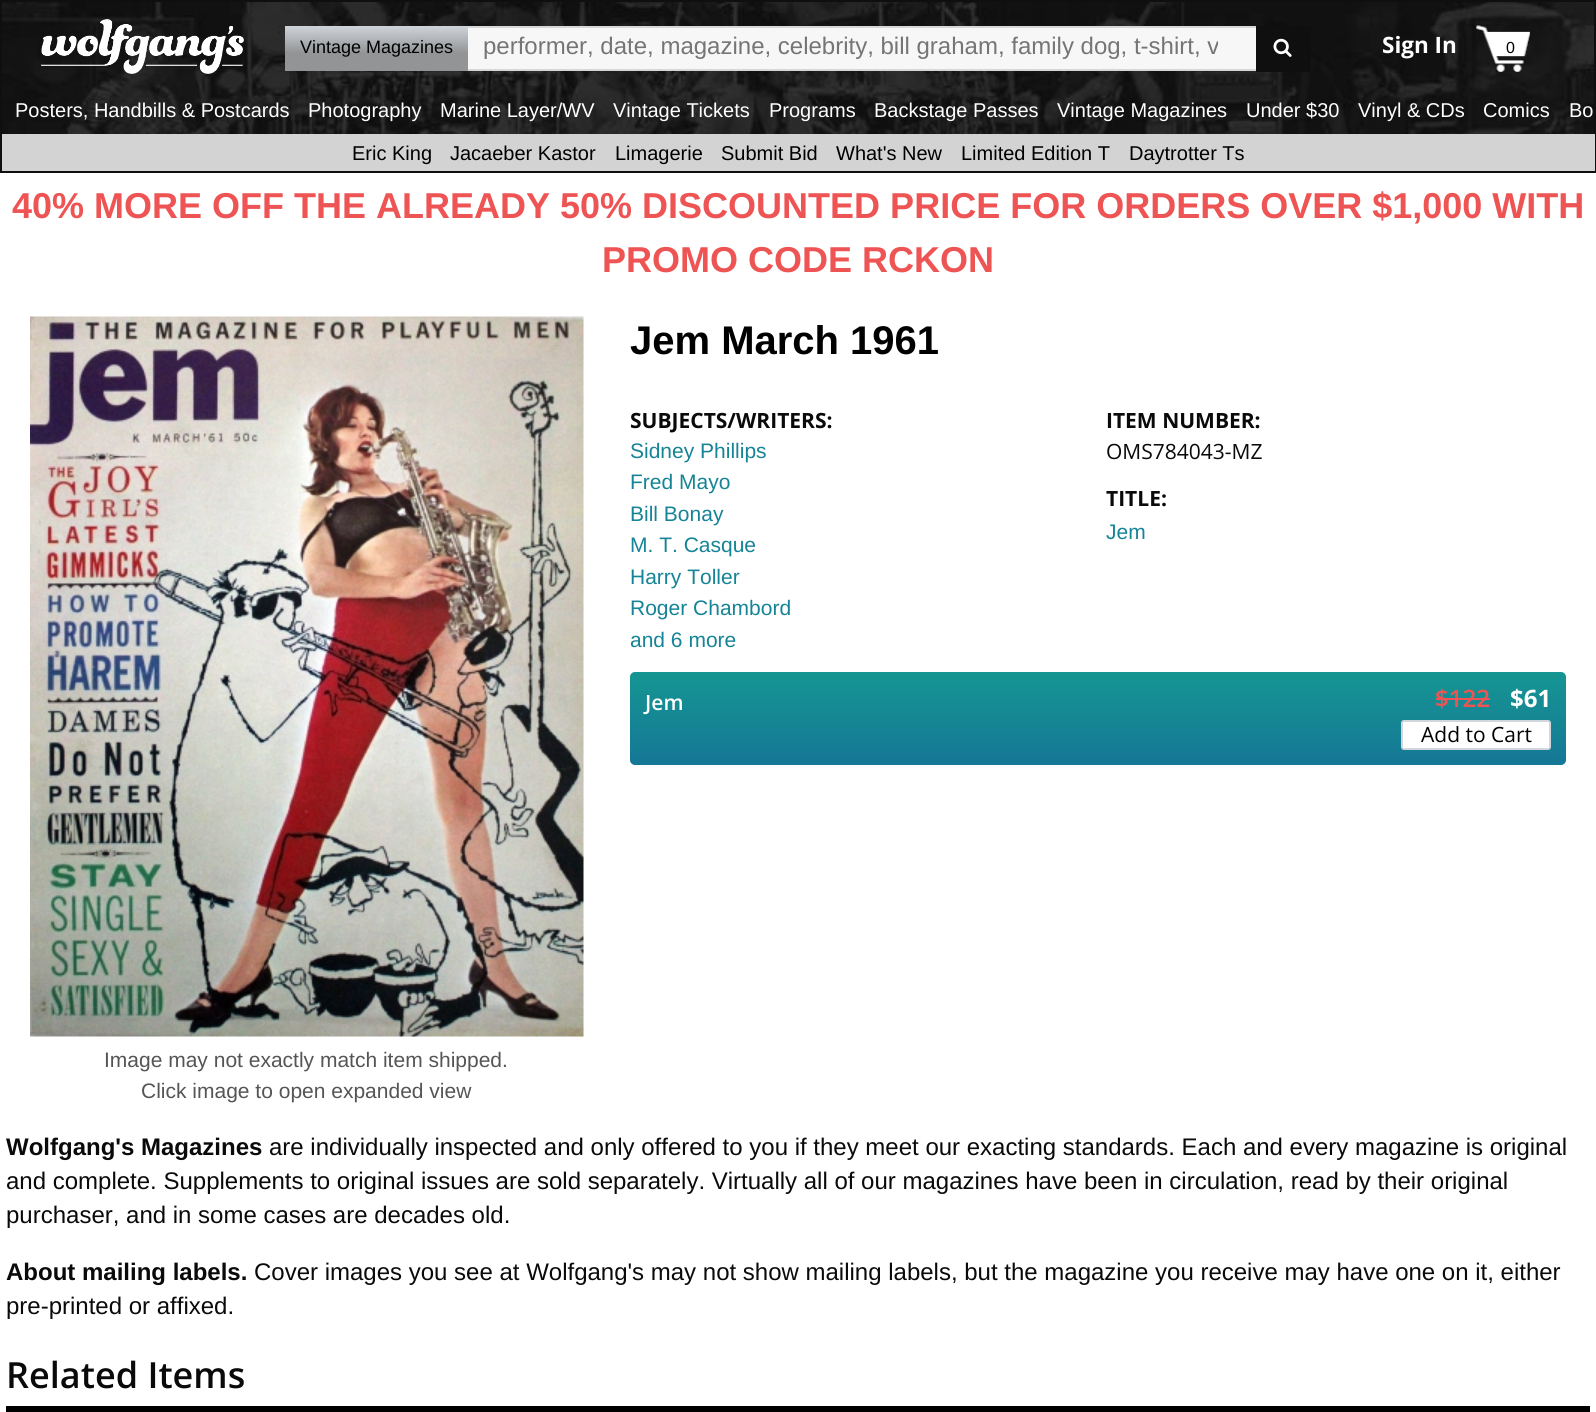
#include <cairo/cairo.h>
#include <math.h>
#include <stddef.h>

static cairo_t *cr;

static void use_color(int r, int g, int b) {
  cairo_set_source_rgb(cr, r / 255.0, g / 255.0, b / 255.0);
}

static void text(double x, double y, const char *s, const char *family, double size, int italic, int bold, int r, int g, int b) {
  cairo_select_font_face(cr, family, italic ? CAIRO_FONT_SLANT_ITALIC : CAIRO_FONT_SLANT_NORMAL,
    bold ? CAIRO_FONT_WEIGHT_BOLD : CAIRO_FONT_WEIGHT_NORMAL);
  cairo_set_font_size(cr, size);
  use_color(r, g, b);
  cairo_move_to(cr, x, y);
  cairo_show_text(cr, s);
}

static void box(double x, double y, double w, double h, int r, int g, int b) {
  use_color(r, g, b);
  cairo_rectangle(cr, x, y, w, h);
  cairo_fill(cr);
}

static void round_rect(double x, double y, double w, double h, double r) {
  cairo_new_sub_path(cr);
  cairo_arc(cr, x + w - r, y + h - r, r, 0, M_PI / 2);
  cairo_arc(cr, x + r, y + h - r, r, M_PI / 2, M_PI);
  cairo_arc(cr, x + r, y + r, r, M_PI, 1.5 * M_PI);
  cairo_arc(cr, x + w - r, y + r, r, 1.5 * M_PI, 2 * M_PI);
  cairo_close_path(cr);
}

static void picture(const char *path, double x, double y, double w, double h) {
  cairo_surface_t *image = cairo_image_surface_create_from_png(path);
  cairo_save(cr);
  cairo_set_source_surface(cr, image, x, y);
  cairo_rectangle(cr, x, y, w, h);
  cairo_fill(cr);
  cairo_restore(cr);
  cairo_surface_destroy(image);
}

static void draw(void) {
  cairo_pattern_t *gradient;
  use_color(255, 255, 255);
  cairo_paint(cr);
  picture("img_01.png", 2, 2, 1592, 132);
  cairo_rectangle(cr, 1, 1, 1594, 171);
  use_color(15, 15, 15);
  cairo_stroke(cr);
  picture("img_02.png", 41, 19, 203, 55);
  gradient = cairo_pattern_create_linear(377, 25, 377, 71);
  cairo_pattern_add_color_stop_rgba(gradient, 0, 0.824, 0.843, 0.867, 1);
  cairo_pattern_add_color_stop_rgba(gradient, 0.61, 0.573, 0.58, 0.588, 1);
  cairo_set_source(cr, gradient);
  cairo_pattern_destroy(gradient);
  cairo_rectangle(cr, 285, 26, 183, 45);
  cairo_fill(cr);
  box(468, 28, 788, 41, 247, 247, 247);
  box(468, 26, 788, 2, 215, 215, 215);
  box(468, 69, 788, 2, 215, 215, 215);
  box(1256, 26, 55, 46, 15, 15, 15);
  picture("img_03.png", 1273, 38, 19, 19);
  picture("img_04.png", 1476, 25, 54, 47);
  box(2, 134, 1593, 37, 211, 211, 211);
  gradient = cairo_pattern_create_linear(1098, 765, 1098, 672);
  cairo_pattern_add_color_stop_rgba(gradient, 0, 0.082, 0.467, 0.588, 1);
  cairo_pattern_add_color_stop_rgba(gradient, 1, 0.082, 0.588, 0.573, 1);
  cairo_set_source(cr, gradient);
  cairo_pattern_destroy(gradient);
  round_rect(630, 672, 936, 93, 5);
  cairo_fill(cr);
  box(1436, 698, 54, 2, 238, 84, 84);
  use_color(255, 255, 255);
  round_rect(1402, 721, 148, 28, 2);
  cairo_fill_preserve(cr);
  use_color(210, 215, 221);
  cairo_stroke(cr);
  picture("img_05.png", 30, 316, 554, 721);
  box(6, 1406, 1584, 6, 0, 0, 0);
  text(300, 53, "Vintage Magazines", "Liberation Sans", 18, 0, 0, 0, 0, 0);
  cairo_save(cr);
  cairo_rectangle(cr, 483, 33, 735, 27);
  cairo_clip(cr);
  text(483, 54, "performer, date, magazine, celebrity, bill graham, family dog, t-shirt, v", "Liberation Sans", 24, 0, 0, 117, 117, 117);
  cairo_restore(cr);
  text(1382, 53, "Sign In", "Open Sans", 22.5, 0, 1, 255, 255, 255);
  text(1506, 53, "0", "Liberation Sans", 16, 0, 0, 0, 0, 0);
  text(15, 117, "Posters, Handbills & Postcards", "Liberation Sans", 20, 0, 0, 255, 255, 255);
  text(308, 117, "Photography", "Liberation Sans", 20, 0, 0, 255, 255, 255);
  text(440, 117, "Marine Layer/WV", "Liberation Sans", 20, 0, 0, 255, 255, 255);
  text(613, 117, "Vintage Tickets", "Liberation Sans", 20, 0, 0, 255, 255, 255);
  text(769, 117, "Programs", "Liberation Sans", 20, 0, 0, 255, 255, 255);
  text(874, 117, "Backstage Passes", "Liberation Sans", 20, 0, 0, 255, 255, 255);
  text(1057, 117, "Vintage Magazines", "Liberation Sans", 20, 0, 0, 255, 255, 255);
  text(1246, 117, "Under $30", "Liberation Sans", 20, 0, 0, 255, 255, 255);
  text(1358, 117, "Vinyl & CDs", "Liberation Sans", 20, 0, 0, 255, 255, 255);
  text(1483, 117, "Comics", "Liberation Sans", 20, 0, 0, 255, 255, 255);
  text(1569, 117, "Bo", "Liberation Sans", 20, 0, 0, 255, 255, 255);
  text(352, 160, "Eric King", "Liberation Sans", 20, 0, 0, 0, 0, 0);
  text(450, 160, "Jacaeber Kastor", "Liberation Sans", 20, 0, 0, 0, 0, 0);
  text(615, 160, "Limagerie", "Liberation Sans", 20, 0, 0, 0, 0, 0);
  text(721, 160, "Submit Bid", "Liberation Sans", 20, 0, 0, 0, 0, 0);
  text(836, 160, "What's New", "Liberation Sans", 20, 0, 0, 0, 0, 0);
  text(961, 160, "Limited Edition T", "Liberation Sans", 20, 0, 0, 0, 0, 0);
  text(1129, 160, "Daytrotter Ts", "Liberation Sans", 20, 0, 0, 0, 0, 0);
  text(12, 218, "40% MORE OFF THE ALREADY 50% DISCOUNTED PRICE FOR ORDERS OVER $1,000 WITH", "Liberation Sans", 36, 0, 1, 238, 84, 84);
  text(602, 272, "PROMO CODE RCKON", "Liberation Sans", 36, 0, 1, 238, 84, 84);
  text(630, 354, "Jem March 1961", "Liberation Sans", 40, 0, 1, 0, 0, 0);
  text(630, 428, "SUBJECTS/WRITERS:", "Open Sans", 21, 0, 1, 10, 10, 10);
  text(630, 458, "Sidney Phillips", "Liberation Sans", 21, 0, 0, 21, 132, 150);
  text(630, 489, "Fred Mayo", "Liberation Sans", 21, 0, 0, 21, 132, 150);
  text(630, 521, "Bill Bonay", "Liberation Sans", 21, 0, 0, 21, 132, 150);
  text(630, 552, "M. T. Casque", "Liberation Sans", 21, 0, 0, 21, 132, 150);
  text(630, 584, "Harry Toller", "Liberation Sans", 21, 0, 0, 21, 132, 150);
  text(630, 615, "Roger Chambord", "Liberation Sans", 21, 0, 0, 21, 132, 150);
  text(630, 647, "and 6 more", "Liberation Sans", 21, 0, 0, 21, 132, 150);
  text(1106, 428, "ITEM NUMBER:", "Open Sans", 21, 0, 1, 10, 10, 10);
  text(1106, 459, "OMS784043-MZ", "Open Sans", 21, 0, 0, 10, 10, 10);
  text(1106, 506, "TITLE:", "Open Sans", 21, 0, 1, 10, 10, 10);
  text(1106, 539, "Jem", "Liberation Sans", 21, 0, 0, 21, 132, 150);
  text(645, 710, "Jem", "Open Sans SemiBold", 21, 0, 0, 255, 255, 255);
  text(1435, 707, "$122", "Open Sans SemiBold", 24, 0, 0, 238, 84, 84);
  text(1510, 707, "$61", "Open Sans", 24, 0, 1, 255, 255, 255);
  text(1421, 742, "Add to Cart", "Open Sans", 21, 0, 0, 0, 0, 0);
  text(104, 1067, "Image may not exactly match item shipped.", "Liberation Sans", 21, 0, 0, 85, 85, 85);
  text(141, 1098, "Click image to open expanded view", "Liberation Sans", 21, 0, 0, 85, 85, 85);
  text(6, 1155, "Wolfgang's Magazines", "Liberation Sans", 24, 0, 1, 10, 10, 10);
  text(269, 1155, "are individually inspected and only offered to you if they meet our exacting standards. Each and every magazine is original", "Liberation Sans", 24, 0, 0, 10, 10, 10);
  text(6, 1189, "and complete. Supplements to original issues are sold separately. Virtually all of our magazines have been in circulation, read by their original", "Liberation Sans", 24, 0, 0, 10, 10, 10);
  text(6, 1223, "purchaser, and in some cases are decades old.", "Liberation Sans", 24, 0, 0, 10, 10, 10);
  text(6, 1280, "About mailing labels.", "Liberation Sans", 24, 0, 1, 10, 10, 10);
  text(254, 1280, "Cover images you see at Wolfgang's may not show mailing labels, but the magazine you receive may have one on it, either", "Liberation Sans", 24, 0, 0, 10, 10, 10);
  text(6, 1314, "pre-printed or affixed.", "Liberation Sans", 24, 0, 0, 10, 10, 10);
  text(6, 1388, "Related Items", "Open Sans SemiBold", 36, 0, 0, 10, 10, 10);
}

int main(void) {
  cairo_surface_t *surface = cairo_image_surface_create(CAIRO_FORMAT_RGB24, 1596, 1412);
  cr = cairo_create(surface);
  cairo_font_options_t *options = cairo_font_options_create();
  cairo_font_options_set_hint_metrics(options, CAIRO_HINT_METRICS_OFF);
  cairo_font_options_set_hint_style(options, CAIRO_HINT_STYLE_NONE);
  cairo_set_font_options(cr, options);
  cairo_set_miter_limit(cr, 4);
  draw();
  cairo_surface_write_to_png(surface, "out.png");
  cairo_font_options_destroy(options);
  cairo_destroy(cr);
  cairo_surface_destroy(surface);
  return 0;
}
